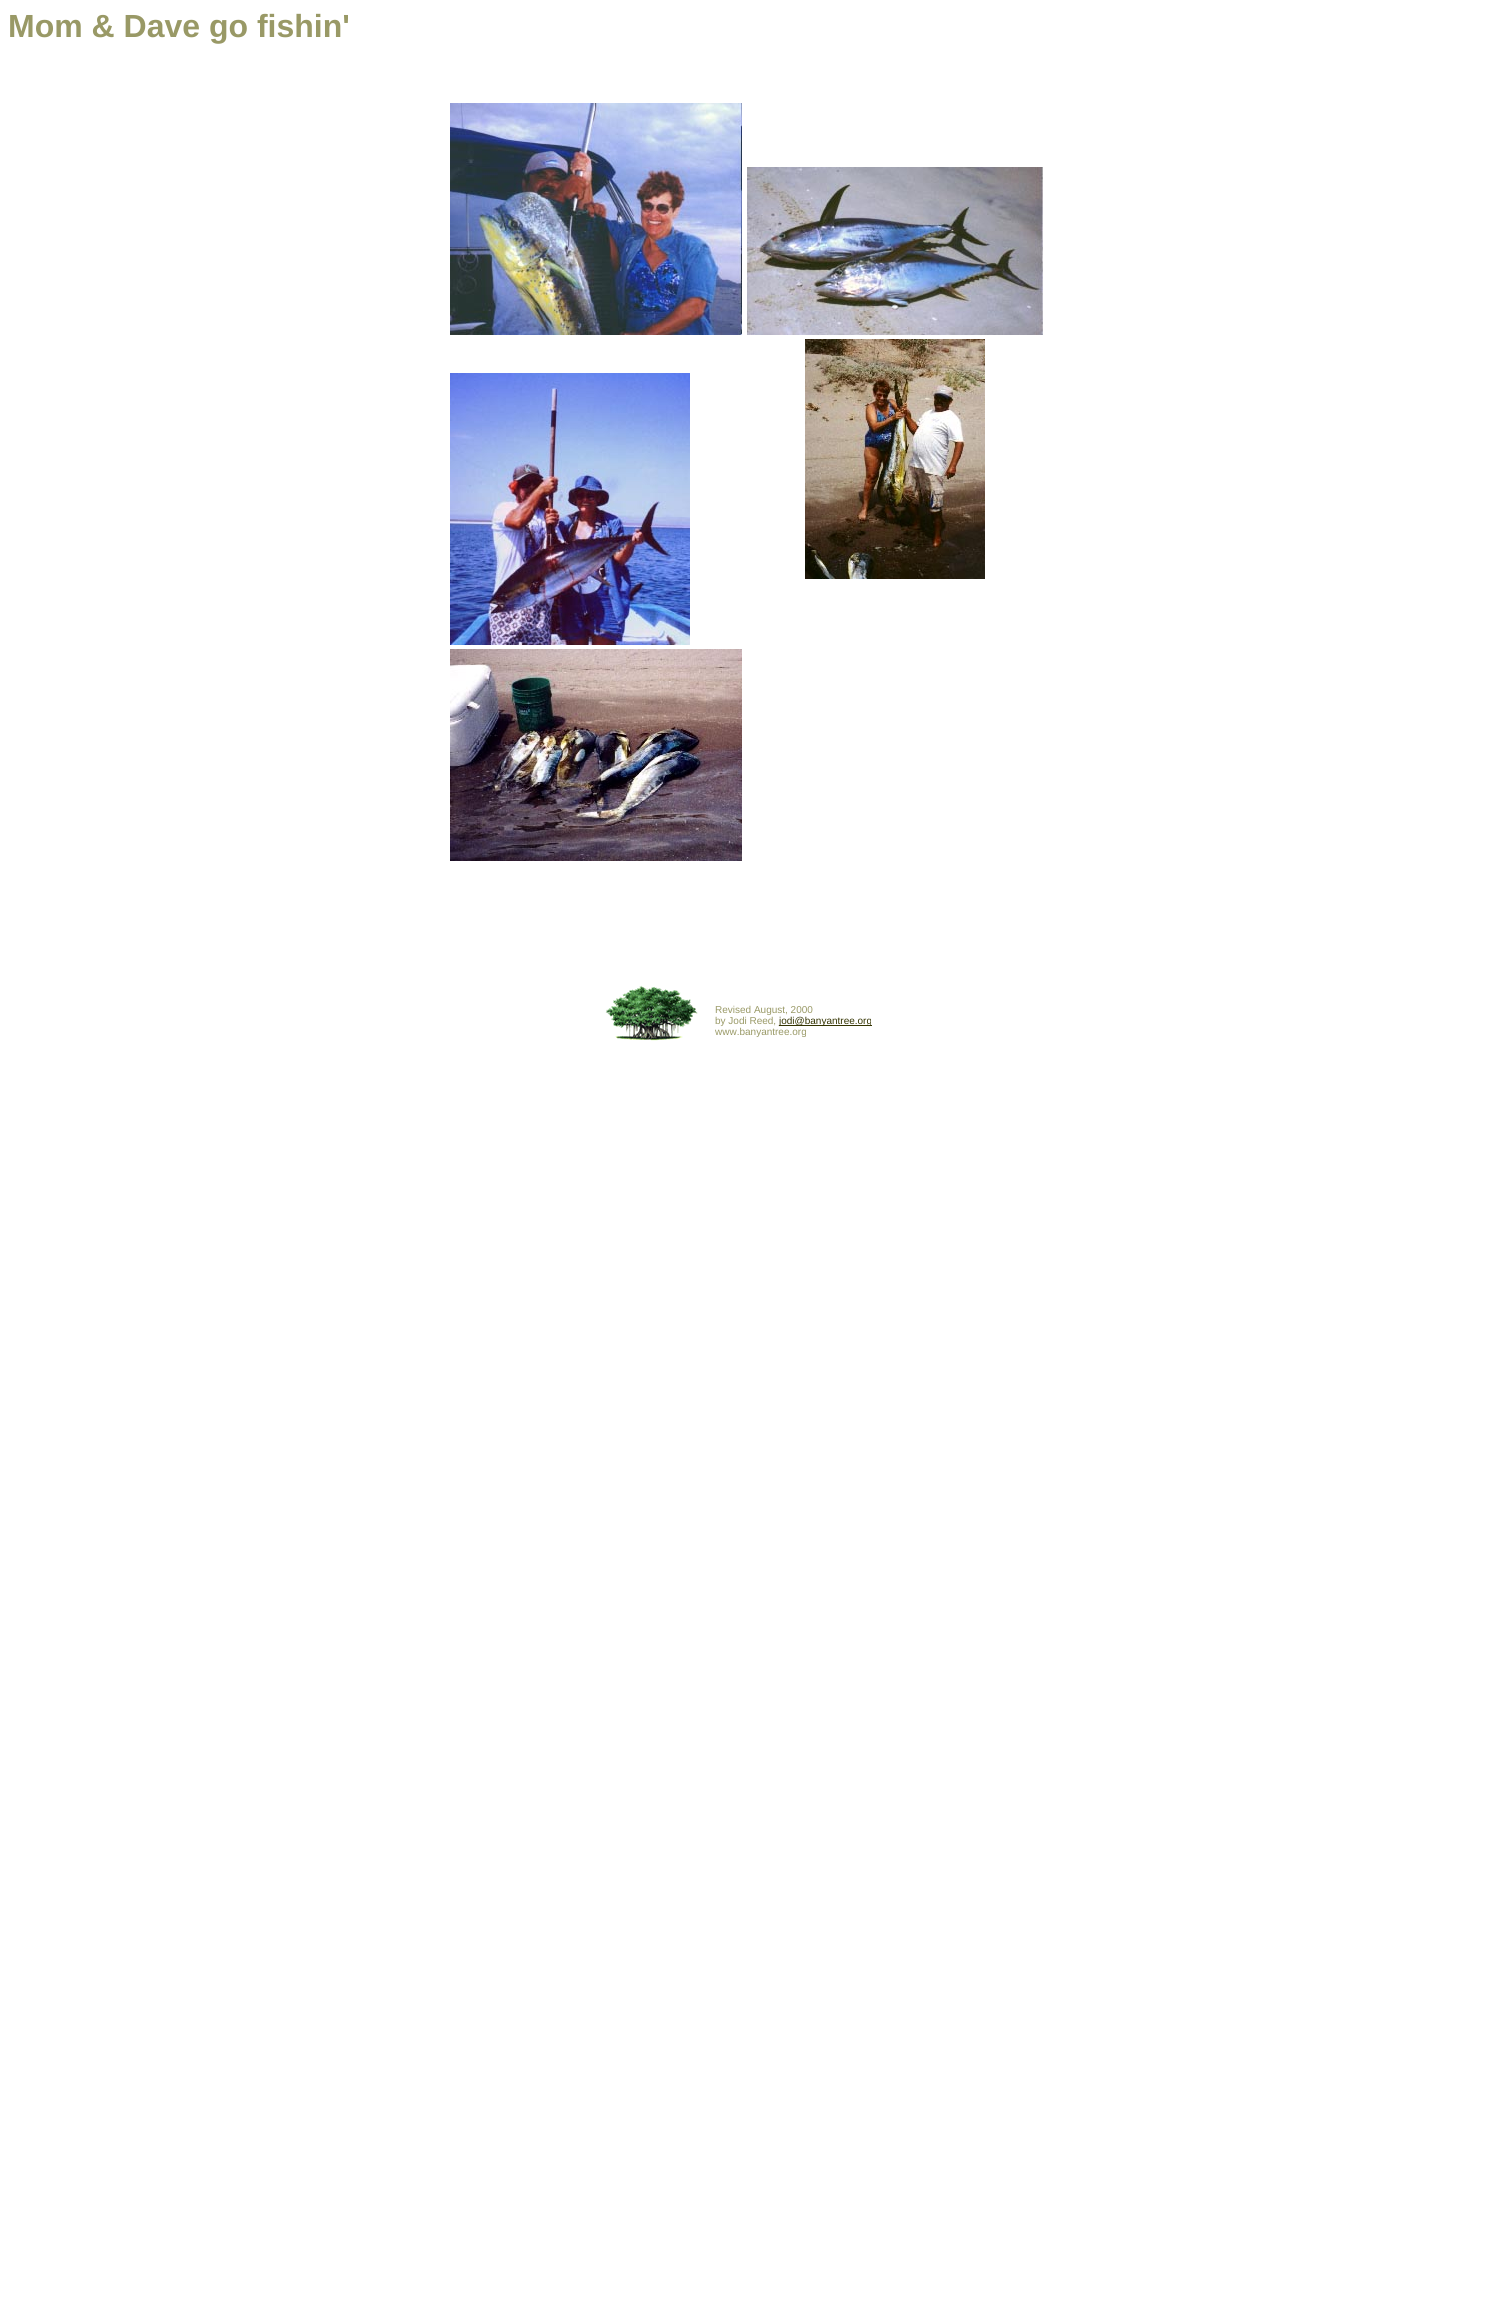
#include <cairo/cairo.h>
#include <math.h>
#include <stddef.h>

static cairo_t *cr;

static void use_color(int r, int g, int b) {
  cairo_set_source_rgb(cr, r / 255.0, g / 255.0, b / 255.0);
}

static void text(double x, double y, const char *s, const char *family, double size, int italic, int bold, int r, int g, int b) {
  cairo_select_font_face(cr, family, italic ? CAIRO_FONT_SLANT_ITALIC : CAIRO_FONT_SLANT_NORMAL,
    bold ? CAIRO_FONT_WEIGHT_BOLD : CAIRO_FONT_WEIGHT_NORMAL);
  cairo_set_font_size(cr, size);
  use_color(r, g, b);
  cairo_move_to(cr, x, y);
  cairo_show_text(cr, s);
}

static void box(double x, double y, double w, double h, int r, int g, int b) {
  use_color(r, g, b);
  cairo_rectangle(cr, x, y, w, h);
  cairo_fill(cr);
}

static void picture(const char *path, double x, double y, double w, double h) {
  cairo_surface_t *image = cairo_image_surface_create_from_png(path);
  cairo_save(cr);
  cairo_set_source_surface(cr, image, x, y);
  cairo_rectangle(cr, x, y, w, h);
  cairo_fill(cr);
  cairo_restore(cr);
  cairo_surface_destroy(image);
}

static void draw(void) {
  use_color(255, 255, 255);
  cairo_paint(cr);
  picture("img_01.png", 450, 103, 292, 232);
  picture("img_02.png", 747, 167, 296, 168);
  picture("img_03.png", 450, 373, 240, 272);
  picture("img_04.png", 805, 339, 180, 240);
  picture("img_05.png", 450, 649, 292, 212);
  picture("img_06.png", 605, 985, 93, 56);
  box(779, 1025, 93, 1, 51, 51, 0);
  text(8, 37, "Mom & Dave go fishin'", "Liberation Sans", 32, 0, 1, 153, 153, 102);
  text(715, 1013, "Revised August, 2000", "Liberation Sans", 10, 0, 0, 153, 153, 102);
  text(715, 1024, "by Jodi Reed,", "Liberation Sans", 10, 0, 0, 153, 153, 102);
  text(779, 1024, "jodi@banyantree.org", "Liberation Sans", 10, 0, 0, 51, 51, 0);
  text(715, 1035, "www.banyantree.org", "Liberation Sans", 10, 0, 0, 153, 153, 102);
}

int main(void) {
  cairo_surface_t *surface = cairo_image_surface_create(CAIRO_FORMAT_RGB24, 1494, 2306);
  cr = cairo_create(surface);
  cairo_font_options_t *options = cairo_font_options_create();
  cairo_font_options_set_hint_metrics(options, CAIRO_HINT_METRICS_OFF);
  cairo_font_options_set_hint_style(options, CAIRO_HINT_STYLE_NONE);
  cairo_set_font_options(cr, options);
  cairo_set_miter_limit(cr, 4);
  draw();
  cairo_surface_write_to_png(surface, "out.png");
  cairo_font_options_destroy(options);
  cairo_destroy(cr);
  cairo_surface_destroy(surface);
  return 0;
}
